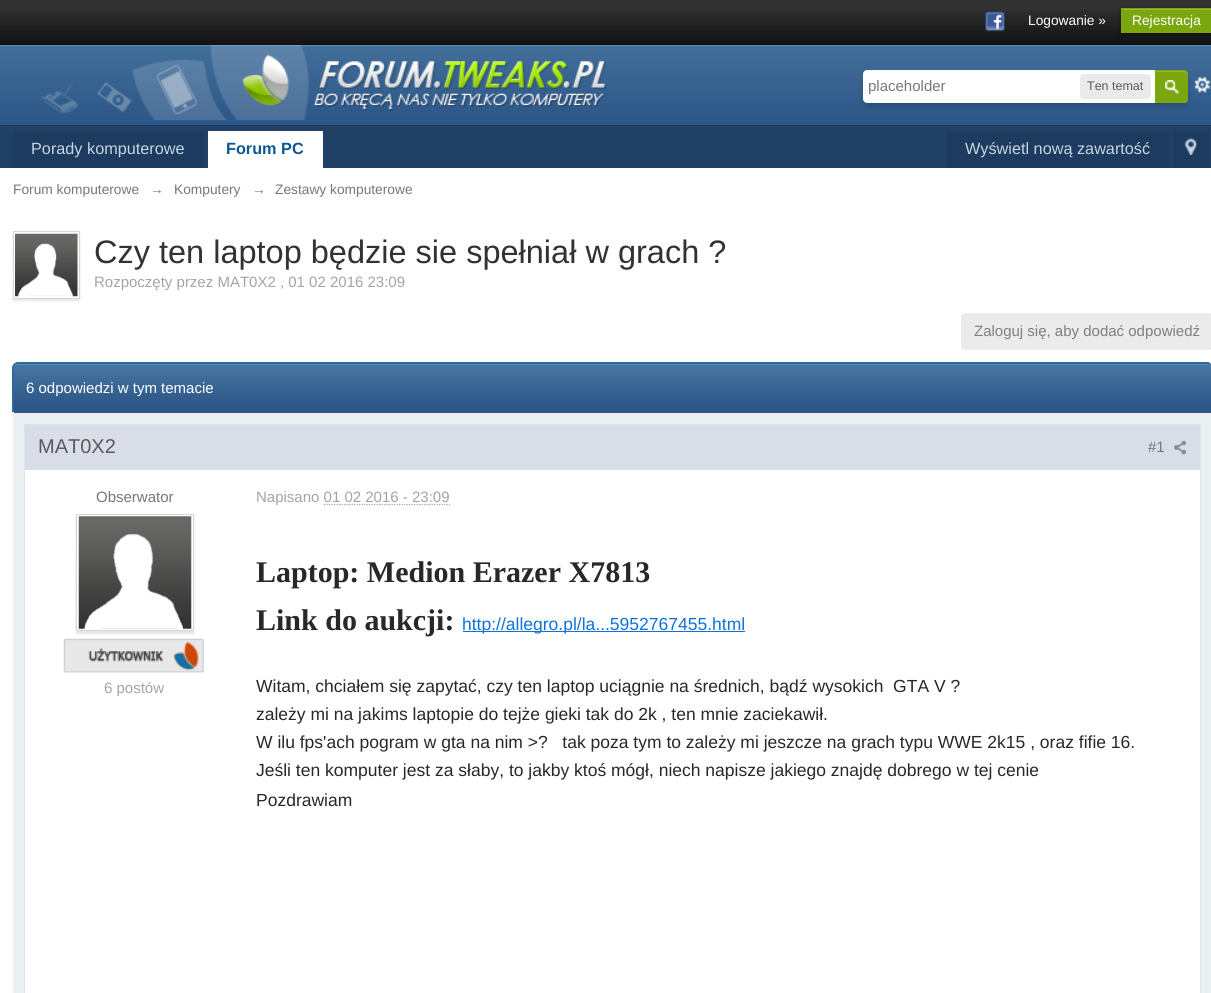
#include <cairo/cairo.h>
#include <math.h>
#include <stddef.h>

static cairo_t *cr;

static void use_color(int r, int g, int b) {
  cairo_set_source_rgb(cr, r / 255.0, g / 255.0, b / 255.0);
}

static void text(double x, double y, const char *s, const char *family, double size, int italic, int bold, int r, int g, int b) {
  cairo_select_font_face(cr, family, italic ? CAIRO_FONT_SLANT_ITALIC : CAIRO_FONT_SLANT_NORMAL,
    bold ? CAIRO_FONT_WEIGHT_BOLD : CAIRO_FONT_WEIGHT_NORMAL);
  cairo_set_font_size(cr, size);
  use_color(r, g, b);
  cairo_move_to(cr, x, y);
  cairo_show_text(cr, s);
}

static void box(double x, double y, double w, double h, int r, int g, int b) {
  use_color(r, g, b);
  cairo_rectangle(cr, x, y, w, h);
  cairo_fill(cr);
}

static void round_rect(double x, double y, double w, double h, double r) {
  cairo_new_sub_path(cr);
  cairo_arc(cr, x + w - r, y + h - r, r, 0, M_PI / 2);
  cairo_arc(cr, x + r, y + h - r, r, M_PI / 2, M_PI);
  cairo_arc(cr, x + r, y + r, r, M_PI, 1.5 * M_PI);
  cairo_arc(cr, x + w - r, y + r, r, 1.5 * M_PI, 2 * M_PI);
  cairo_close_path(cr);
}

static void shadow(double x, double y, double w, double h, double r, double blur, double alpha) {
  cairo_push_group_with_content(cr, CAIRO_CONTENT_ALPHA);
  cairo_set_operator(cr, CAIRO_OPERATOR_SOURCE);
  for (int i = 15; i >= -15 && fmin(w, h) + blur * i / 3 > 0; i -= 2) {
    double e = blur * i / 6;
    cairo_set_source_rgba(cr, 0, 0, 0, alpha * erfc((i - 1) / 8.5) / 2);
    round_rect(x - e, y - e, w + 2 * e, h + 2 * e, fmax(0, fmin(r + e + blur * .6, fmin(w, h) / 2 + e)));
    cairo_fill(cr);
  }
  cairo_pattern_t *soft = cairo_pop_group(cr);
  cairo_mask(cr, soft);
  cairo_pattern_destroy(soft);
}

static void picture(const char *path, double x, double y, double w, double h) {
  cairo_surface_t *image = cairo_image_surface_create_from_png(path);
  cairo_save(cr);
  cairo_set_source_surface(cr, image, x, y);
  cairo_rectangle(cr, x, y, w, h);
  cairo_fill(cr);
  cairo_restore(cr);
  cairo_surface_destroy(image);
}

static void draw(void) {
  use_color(50, 50, 50);
  cairo_paint(cr);
  picture("img_01.png", 0, 10, 1211, 35);
  picture("img_02.png", 985, 11, 20, 21);
  use_color(0, 0, 0);
  shadow(1121, 9, 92, 25, 0, 2.5, 0.4);
  box(1121, 8, 90, 25, 123, 166, 13);
  box(1123, 9, 88, 1, 149, 184, 61);
  picture("img_03.png", 0, 45, 1211, 80);
  box(0, 125, 1211, 1, 27, 55, 89);
  picture("img_04.png", 41, 45, 566, 75);
  picture("img_06.png", 1194, 77, 17, 16);
  use_color(0, 0, 0);
  shadow(863, 73, 325, 32, 5, 2.5, 0.2);
  use_color(255, 255, 255);
  cairo_new_path(cr);
  cairo_move_to(cr, 867, 70);
  cairo_line_to(cr, 1183, 70);
  cairo_curve_to(cr, 1186, 70, 1188, 72, 1188, 75);
  cairo_line_to(cr, 1188, 98);
  cairo_curve_to(cr, 1188, 101, 1186, 103, 1183, 103);
  cairo_line_to(cr, 867, 103);
  cairo_curve_to(cr, 865, 103, 863, 101, 863, 99);
  cairo_line_to(cr, 863, 74);
  cairo_curve_to(cr, 863, 72, 865, 70, 867, 70);
  cairo_close_path(cr);
  cairo_fill(cr);
  use_color(234, 234, 234);
  round_rect(1080, 74, 71, 25, 4);
  cairo_fill(cr);
  use_color(123, 166, 13);
  cairo_new_path(cr);
  cairo_move_to(cr, 1155, 70);
  cairo_line_to(cr, 1184, 70);
  cairo_curve_to(cr, 1186, 70, 1188, 72, 1188, 74);
  cairo_line_to(cr, 1188, 99);
  cairo_curve_to(cr, 1188, 101, 1186, 103, 1184, 103);
  cairo_line_to(cr, 1155, 103);
  cairo_close_path(cr);
  cairo_fill(cr);
  picture("img_05.png", 1165, 80, 14, 14);
  use_color(149, 184, 61);
  cairo_new_path(cr);
  cairo_move_to(cr, 1156, 72);
  cairo_line_to(cr, 1184, 72);
  cairo_curve_to(cr, 1185, 72, 1186, 74, 1186, 75);
  cairo_line_to(cr, 1186, 73.5);
  cairo_curve_to(cr, 1186, 72, 1185, 71, 1183.5, 71);
  cairo_line_to(cr, 1156, 71);
  cairo_close_path(cr);
  cairo_fill(cr);
  cairo_new_path(cr);
  cairo_move_to(cr, 1155.5, 70.5);
  cairo_line_to(cr, 1184, 70.5);
  cairo_curve_to(cr, 1186, 70.5, 1187.5, 72, 1187.5, 74);
  cairo_line_to(cr, 1187.5, 99);
  cairo_curve_to(cr, 1187.5, 101, 1186, 102.5, 1184, 102.5);
  cairo_line_to(cr, 1155.5, 102.5);
  cairo_close_path(cr);
  use_color(123, 166, 13);
  cairo_set_line_width(cr, 1);
  cairo_stroke(cr);
  box(0, 126, 1211, 42, 32, 64, 102);
  box(13, 131, 191, 37, 28, 59, 95);
  box(208, 131, 115, 37, 255, 255, 255);
  box(946, 131, 223, 37, 28, 59, 95);
  box(1173, 131, 36, 37, 28, 59, 95);
  picture("img_07.png", 1184, 138, 13, 17);
  box(0, 168, 1211, 825, 255, 255, 255);
  use_color(0, 0, 0);
  shadow(13, 234, 67, 67, 0, 1, 0.1);
  box(14, 233, 65, 65, 255, 255, 255);
  cairo_rectangle(cr, 13.5, 231.5, 66, 67);
  use_color(213, 213, 213);
  cairo_stroke(cr);
  picture("img_08.png", 15, 233, 63, 64);
  use_color(235, 235, 235);
  round_rect(961, 313, 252, 37, 4);
  cairo_fill(cr);
  box(14, 407, 1197, 6, 44, 86, 135);
  picture("img_09.png", 12, 363, 1199, 45);
  use_color(82, 140, 188);
  cairo_new_path(cr);
  cairo_move_to(cr, 18, 365);
  cairo_line_to(cr, 1208, 365);
  cairo_curve_to(cr, 1210, 365, 1211, 367, 1211, 369);
  cairo_curve_to(cr, 1211, 366, 1210, 364, 1207, 364);
  cairo_line_to(cr, 18, 364);
  cairo_curve_to(cr, 15, 364, 14, 366, 14, 369);
  cairo_curve_to(cr, 14, 367, 15, 365, 18, 365);
  cairo_close_path(cr);
  cairo_fill(cr);
  use_color(49, 104, 151);
  cairo_set_fill_rule(cr, CAIRO_FILL_RULE_EVEN_ODD);
  cairo_new_path(cr);
  cairo_move_to(cr, 18, 362);
  cairo_line_to(cr, 1208, 362);
  cairo_curve_to(cr, 1210, 362, 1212, 365, 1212, 368);
  cairo_line_to(cr, 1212, 412);
  cairo_line_to(cr, 12, 412);
  cairo_line_to(cr, 12, 368);
  cairo_curve_to(cr, 12, 365, 15, 362, 18, 362);
  cairo_close_path(cr);
  cairo_move_to(cr, 18, 364);
  cairo_line_to(cr, 1208, 364);
  cairo_curve_to(cr, 1210, 364, 1211, 365, 1211, 368);
  cairo_line_to(cr, 1211, 412);
  cairo_line_to(cr, 14, 412);
  cairo_line_to(cr, 14, 368);
  cairo_curve_to(cr, 14, 365, 15, 364, 18, 364);
  cairo_close_path(cr);
  cairo_fill(cr);
  box(13, 413, 1198, 580, 235, 240, 243);
  box(25, 470, 1175, 523, 255, 255, 255);
  cairo_rectangle(cr, 24.5, 424.5, 1176, 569);
  use_color(219, 228, 239);
  cairo_stroke(cr);
  box(25, 425, 1175, 45, 216, 221, 232);
  picture("img_10.png", 1174, 440, 12, 15);
  use_color(0, 0, 0);
  shadow(76, 516, 118, 118, 0, 1, 0.1);
  use_color(255, 255, 255);
  cairo_rectangle(cr, 76.5, 514.5, 117, 116);
  cairo_fill_preserve(cr);
  use_color(213, 213, 213);
  cairo_stroke(cr);
  picture("img_11.png", 78, 516, 114, 113);
  picture("img_12.png", 63, 638, 141, 35);
  cairo_new_path(cr);
  cairo_move_to(cr, 324, 504.5);
  cairo_line_to(cr, 450, 504.5);
  use_color(164, 164, 164);
  cairo_set_line_width(cr, 1.2);
  cairo_set_dash(cr, (double[]){1.25, 1.25}, 2, 0);
  cairo_stroke(cr);
  box(463, 631, 282, 1, 15, 114, 218);
  text(1028, 25, "Logowanie »", "Liberation Sans", 13.75, 0, 0, 255, 255, 255);
  text(1132, 25, "Rejestracja", "Liberation Sans", 13.75, 0, 0, 255, 255, 255);
  text(868, 91, "placeholder", "Liberation Sans", 15, 0, 0, 119, 119, 119);
  text(1087, 90, "Ten temat", "Liberation Sans", 12.5, 0, 0, 90, 90, 90);
  text(31, 154, "Porady komputerowe", "Liberation Sans", 16.25, 0, 0, 197, 213, 226);
  text(226, 154, "Forum PC", "Liberation Sans", 16.25, 0, 1, 11, 87, 148);
  text(965, 154, "Wyświetl nową zawartość", "Liberation Sans", 16.25, 0, 0, 197, 213, 226);
  text(13, 194, "Forum komputerowe", "Liberation Sans", 13.75, 0, 0, 119, 119, 119);
  text(150, 194, "→", "Liberation Sans", 13.75, 0, 0, 119, 119, 119);
  text(174, 194, "Komputery", "Liberation Sans", 13.75, 0, 0, 119, 119, 119);
  text(252, 194, "→", "Liberation Sans", 13.75, 0, 0, 119, 119, 119);
  text(275, 194, "Zestawy komputerowe", "Liberation Sans", 13.75, 0, 0, 119, 119, 119);
  text(94, 263, "Czy ten laptop będzie sie spełniał w grach ?", "Liberation Sans", 32.5, 0, 0, 50, 50, 50);
  text(94, 287, "Rozpoczęty przez MAT0X2 , 01 02 2016 23:09", "Liberation Sans", 15, 0, 0, 164, 164, 164);
  text(974, 336, "Zaloguj się, aby dodać odpowiedź", "Liberation Sans", 15, 0, 0, 127, 127, 127);
  text(26, 393, "6 odpowiedzi w tym temacie", "Liberation Sans", 15, 0, 0, 255, 255, 255);
  text(38, 453, "MAT0X2", "Liberation Sans", 20, 0, 0, 90, 90, 90);
  text(1148, 452, "#1", "Liberation Sans", 15, 0, 0, 119, 119, 119);
  text(96, 502, "Obserwator", "Liberation Sans", 15, 0, 0, 119, 119, 119);
  text(104, 693, "6 postów", "Liberation Sans", 15, 0, 0, 164, 164, 164);
  text(256, 502, "Napisano 01 02 2016 - 23:09", "Liberation Sans", 15, 0, 0, 164, 164, 164);
  text(256, 582, "Laptop: Medion Erazer X7813", "Liberation Serif", 30, 0, 1, 40, 40, 40);
  text(256, 630, "Link do aukcji:", "Liberation Serif", 30, 0, 1, 40, 40, 40);
  text(462, 630, "http://allegro.pl/la...5952767455.html", "Liberation Sans", 17.5, 0, 0, 15, 114, 218);
  text(256, 692, "Witam, chciałem się zapytać, czy ten laptop uciągnie na średnich, bądź wysokich  GTA V ?", "Liberation Sans", 17.5, 0, 0, 40, 40, 40);
  text(256, 720, "zależy mi na jakims laptopie do tejże gieki tak do 2k , ten mnie zaciekawił.", "Liberation Sans", 17.5, 0, 0, 40, 40, 40);
  text(256, 748, "W ilu fps'ach pogram w gta na nim >?   tak poza tym to zależy mi jeszcze na grach typu WWE 2k15 , oraz fifie 16.", "Liberation Sans", 17.5, 0, 0, 40, 40, 40);
  text(256, 776, "Jeśli ten komputer jest za słaby, to jakby ktoś mógł, niech napisze jakiego znajdę dobrego w tej cenie", "Liberation Sans", 17.5, 0, 0, 40, 40, 40);
  text(256, 806, "Pozdrawiam", "Liberation Sans", 17.5, 0, 0, 40, 40, 40);
}

int main(void) {
  cairo_surface_t *surface = cairo_image_surface_create(CAIRO_FORMAT_RGB24, 1211, 993);
  cr = cairo_create(surface);
  cairo_font_options_t *options = cairo_font_options_create();
  cairo_font_options_set_hint_metrics(options, CAIRO_HINT_METRICS_OFF);
  cairo_font_options_set_hint_style(options, CAIRO_HINT_STYLE_NONE);
  cairo_set_font_options(cr, options);
  cairo_set_miter_limit(cr, 4);
  draw();
  cairo_surface_write_to_png(surface, "out.png");
  cairo_font_options_destroy(options);
  cairo_destroy(cr);
  cairo_surface_destroy(surface);
  return 0;
}
